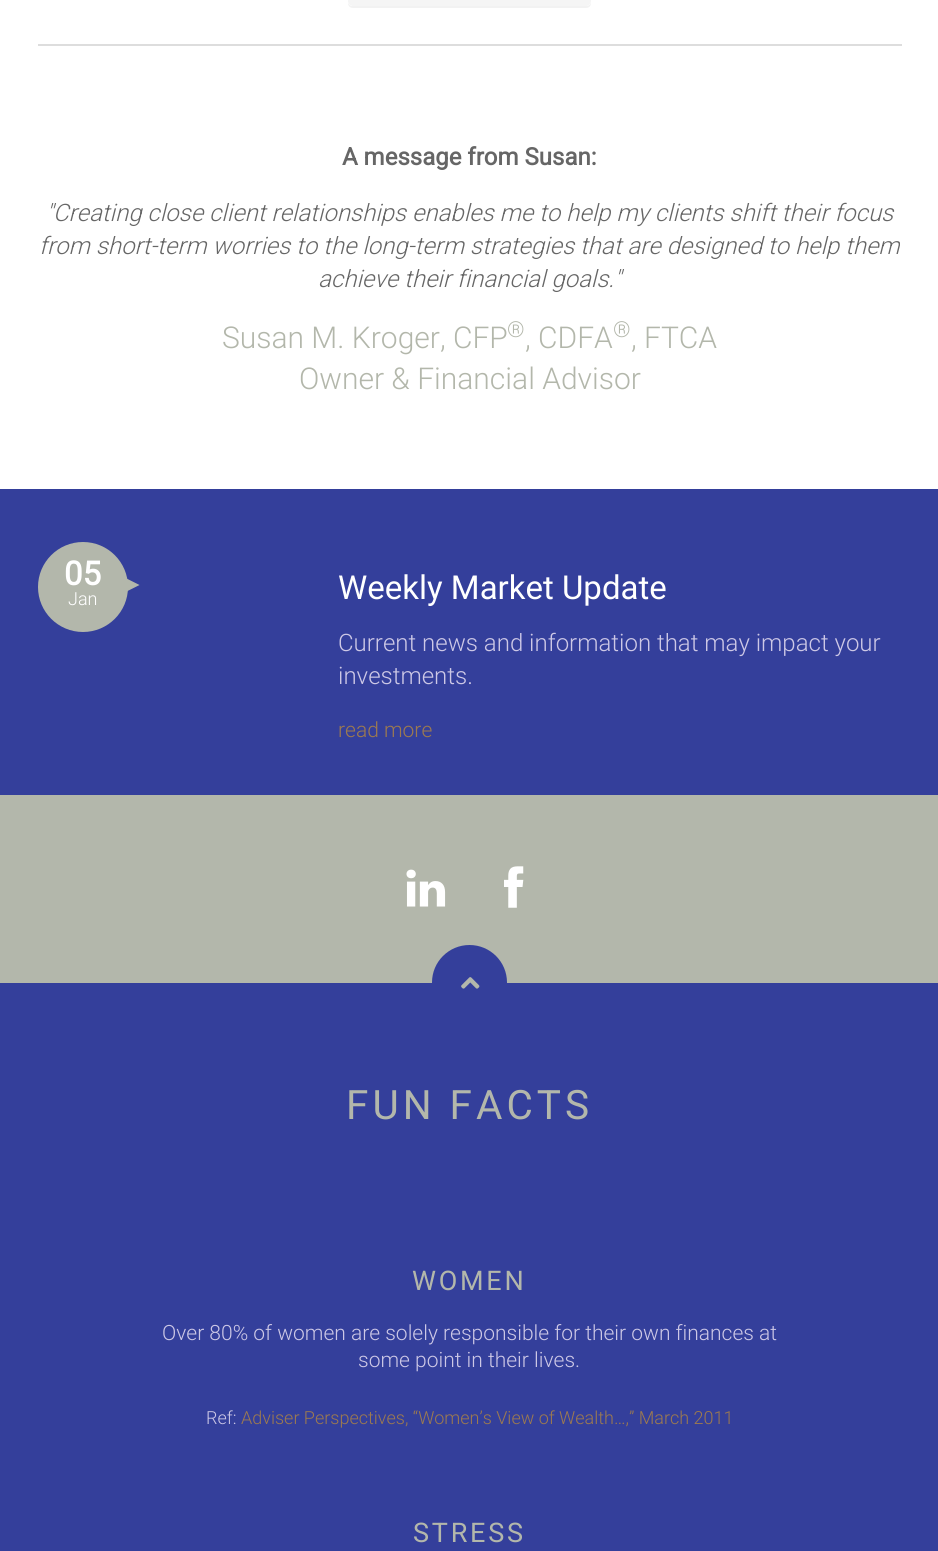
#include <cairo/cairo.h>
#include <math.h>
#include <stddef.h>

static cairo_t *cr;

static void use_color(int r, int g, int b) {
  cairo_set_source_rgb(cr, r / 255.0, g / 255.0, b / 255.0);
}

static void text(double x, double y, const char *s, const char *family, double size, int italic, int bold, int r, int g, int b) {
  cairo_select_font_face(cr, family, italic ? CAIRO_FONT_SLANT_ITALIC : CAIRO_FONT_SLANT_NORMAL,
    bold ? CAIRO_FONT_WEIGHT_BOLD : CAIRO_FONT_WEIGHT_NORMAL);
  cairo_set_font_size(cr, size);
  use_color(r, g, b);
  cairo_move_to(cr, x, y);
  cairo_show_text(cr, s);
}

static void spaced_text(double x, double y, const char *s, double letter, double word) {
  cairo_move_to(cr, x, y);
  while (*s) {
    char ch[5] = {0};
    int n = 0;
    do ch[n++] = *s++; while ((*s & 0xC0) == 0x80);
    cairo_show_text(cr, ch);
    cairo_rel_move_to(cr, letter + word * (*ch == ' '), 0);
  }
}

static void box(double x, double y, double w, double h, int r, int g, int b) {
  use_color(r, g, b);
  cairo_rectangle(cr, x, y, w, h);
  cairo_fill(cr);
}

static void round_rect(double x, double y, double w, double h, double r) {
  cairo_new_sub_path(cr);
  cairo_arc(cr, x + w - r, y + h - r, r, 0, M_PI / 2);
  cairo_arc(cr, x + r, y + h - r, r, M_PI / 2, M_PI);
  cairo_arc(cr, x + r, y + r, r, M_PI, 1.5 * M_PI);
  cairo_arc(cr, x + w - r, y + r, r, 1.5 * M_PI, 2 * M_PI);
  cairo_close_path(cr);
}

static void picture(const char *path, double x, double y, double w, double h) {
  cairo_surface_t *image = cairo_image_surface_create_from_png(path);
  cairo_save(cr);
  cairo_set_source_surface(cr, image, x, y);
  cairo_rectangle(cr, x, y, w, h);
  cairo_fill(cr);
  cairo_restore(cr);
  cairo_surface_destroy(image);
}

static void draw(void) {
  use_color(255, 255, 255);
  cairo_paint(cr);
  use_color(242, 242, 242);
  cairo_new_path(cr);
  cairo_move_to(cr, 348, 2);
  cairo_line_to(cr, 348, 3);
  cairo_curve_to(cr, 348, 6, 350, 8, 353, 8);
  cairo_line_to(cr, 586, 8);
  cairo_curve_to(cr, 589, 8, 591, 6, 591, 3);
  cairo_line_to(cr, 591, 2);
  cairo_curve_to(cr, 591, 4, 589, 6, 586, 6);
  cairo_line_to(cr, 352, 6);
  cairo_curve_to(cr, 350, 6, 348, 4, 348, 2);
  cairo_close_path(cr);
  cairo_fill(cr);
  use_color(245, 245, 245);
  round_rect(348, -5, 243, 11, 5);
  cairo_fill(cr);
  box(38, 44, 864, 2, 221, 221, 221);
  box(0, 489, 938, 306, 52, 63, 155);
  use_color(179, 183, 171);
  cairo_arc(cr, 83, 587, 45, 0, 2 * M_PI);
  cairo_fill(cr);
  cairo_new_path(cr);
  cairo_move_to(cr, 124.5, 592.5);
  cairo_line_to(cr, 124.5, 577.5);
  cairo_line_to(cr, 139.5, 585);
  cairo_close_path(cr);
  cairo_fill(cr);
  box(0, 795, 938, 188, 179, 183, 171);
  picture("img_01.png", 406, 869, 40, 38);
  picture("img_02.png", 504, 866, 20, 42);
  box(0, 983, 938, 568, 52, 63, 155);
  cairo_arc(cr, 469.5, 982.5, 37.5, 0, 2 * M_PI);
  cairo_fill(cr);
  picture("img_03.png", 461, 977, 19, 12);
  text(342, 165, "A message from Susan:", "Roboto", 24, 0, 1, 102, 102, 102);
  text(46, 221, "\"Creating close client relationships enables me to help my clients shift their focus", "Roboto Light", 24, 1, 0, 102, 102, 102);
  text(39, 254, "from short-term worries to the long-term strategies that are designed to help them", "Roboto Light", 24, 1, 0, 102, 102, 102);
  text(318, 287, "achieve their financial goals.\"", "Roboto Light", 24, 1, 0, 102, 102, 102);
  text(222, 348, "Susan M. Kroger, CFP", "Roboto Light", 30, 0, 0, 179, 183, 171);
  text(507, 337, "®", "Roboto Light", 22, 0, 0, 179, 183, 171);
  text(525, 348, ", CDFA", "Roboto Light", 30, 0, 0, 179, 183, 171);
  text(613, 337, "®", "Roboto Light", 22, 0, 0, 179, 183, 171);
  text(631, 348, ", FTCA", "Roboto Light", 30, 0, 0, 179, 183, 171);
  text(299, 389, "Owner & Financial Advisor", "Roboto Light", 30, 0, 0, 179, 183, 171);
  text(64, 585, "05", "Roboto", 33, 0, 1, 255, 255, 255);
  text(68, 605, "Jan", "Roboto Light", 18, 0, 0, 255, 255, 255);
  text(338, 599, "Weekly Market Update", "Roboto", 33, 0, 0, 255, 255, 255);
  text(338, 651, "Current news and information that may impact your", "Roboto Light", 24, 0, 0, 205, 200, 230);
  text(338, 684, "investments.", "Roboto Light", 24, 0, 0, 205, 200, 230);
  text(338, 737, "read more", "Roboto Light", 21, 0, 0, 157, 122, 79);
  cairo_select_font_face(cr, "Roboto", CAIRO_FONT_SLANT_NORMAL, CAIRO_FONT_WEIGHT_NORMAL);
  cairo_set_font_size(cr, 40.5);
  use_color(179, 183, 171);
  spaced_text(346, 1119, "FUN FACTS", 4, 0);
  cairo_set_font_size(cr, 27);
  spaced_text(412, 1290, "WOMEN", 2.75, 0);
  text(162, 1340, "Over 80% of women are solely responsible for their own finances at", "Roboto Light", 21, 0, 0, 205, 200, 230);
  text(358, 1367, "some point in their lives.", "Roboto Light", 21, 0, 0, 205, 200, 230);
  text(206, 1424, "Ref:", "Roboto Light", 18, 0, 0, 205, 200, 230);
  text(241, 1424, "Adviser Perspectives, “Women’s View of Wealth…,” March 2011", "Roboto Light", 18, 0, 0, 157, 122, 79);
  cairo_select_font_face(cr, "Roboto", CAIRO_FONT_SLANT_NORMAL, CAIRO_FONT_WEIGHT_NORMAL);
  cairo_set_font_size(cr, 27);
  use_color(179, 183, 171);
  spaced_text(413, 1542, "STRESS", 2.75, 0);
}

int main(void) {
  cairo_surface_t *surface = cairo_image_surface_create(CAIRO_FORMAT_RGB24, 938, 1551);
  cr = cairo_create(surface);
  cairo_font_options_t *options = cairo_font_options_create();
  cairo_font_options_set_hint_metrics(options, CAIRO_HINT_METRICS_OFF);
  cairo_font_options_set_hint_style(options, CAIRO_HINT_STYLE_NONE);
  cairo_set_font_options(cr, options);
  cairo_set_miter_limit(cr, 4);
  draw();
  cairo_surface_write_to_png(surface, "out.png");
  cairo_font_options_destroy(options);
  cairo_destroy(cr);
  cairo_surface_destroy(surface);
  return 0;
}
